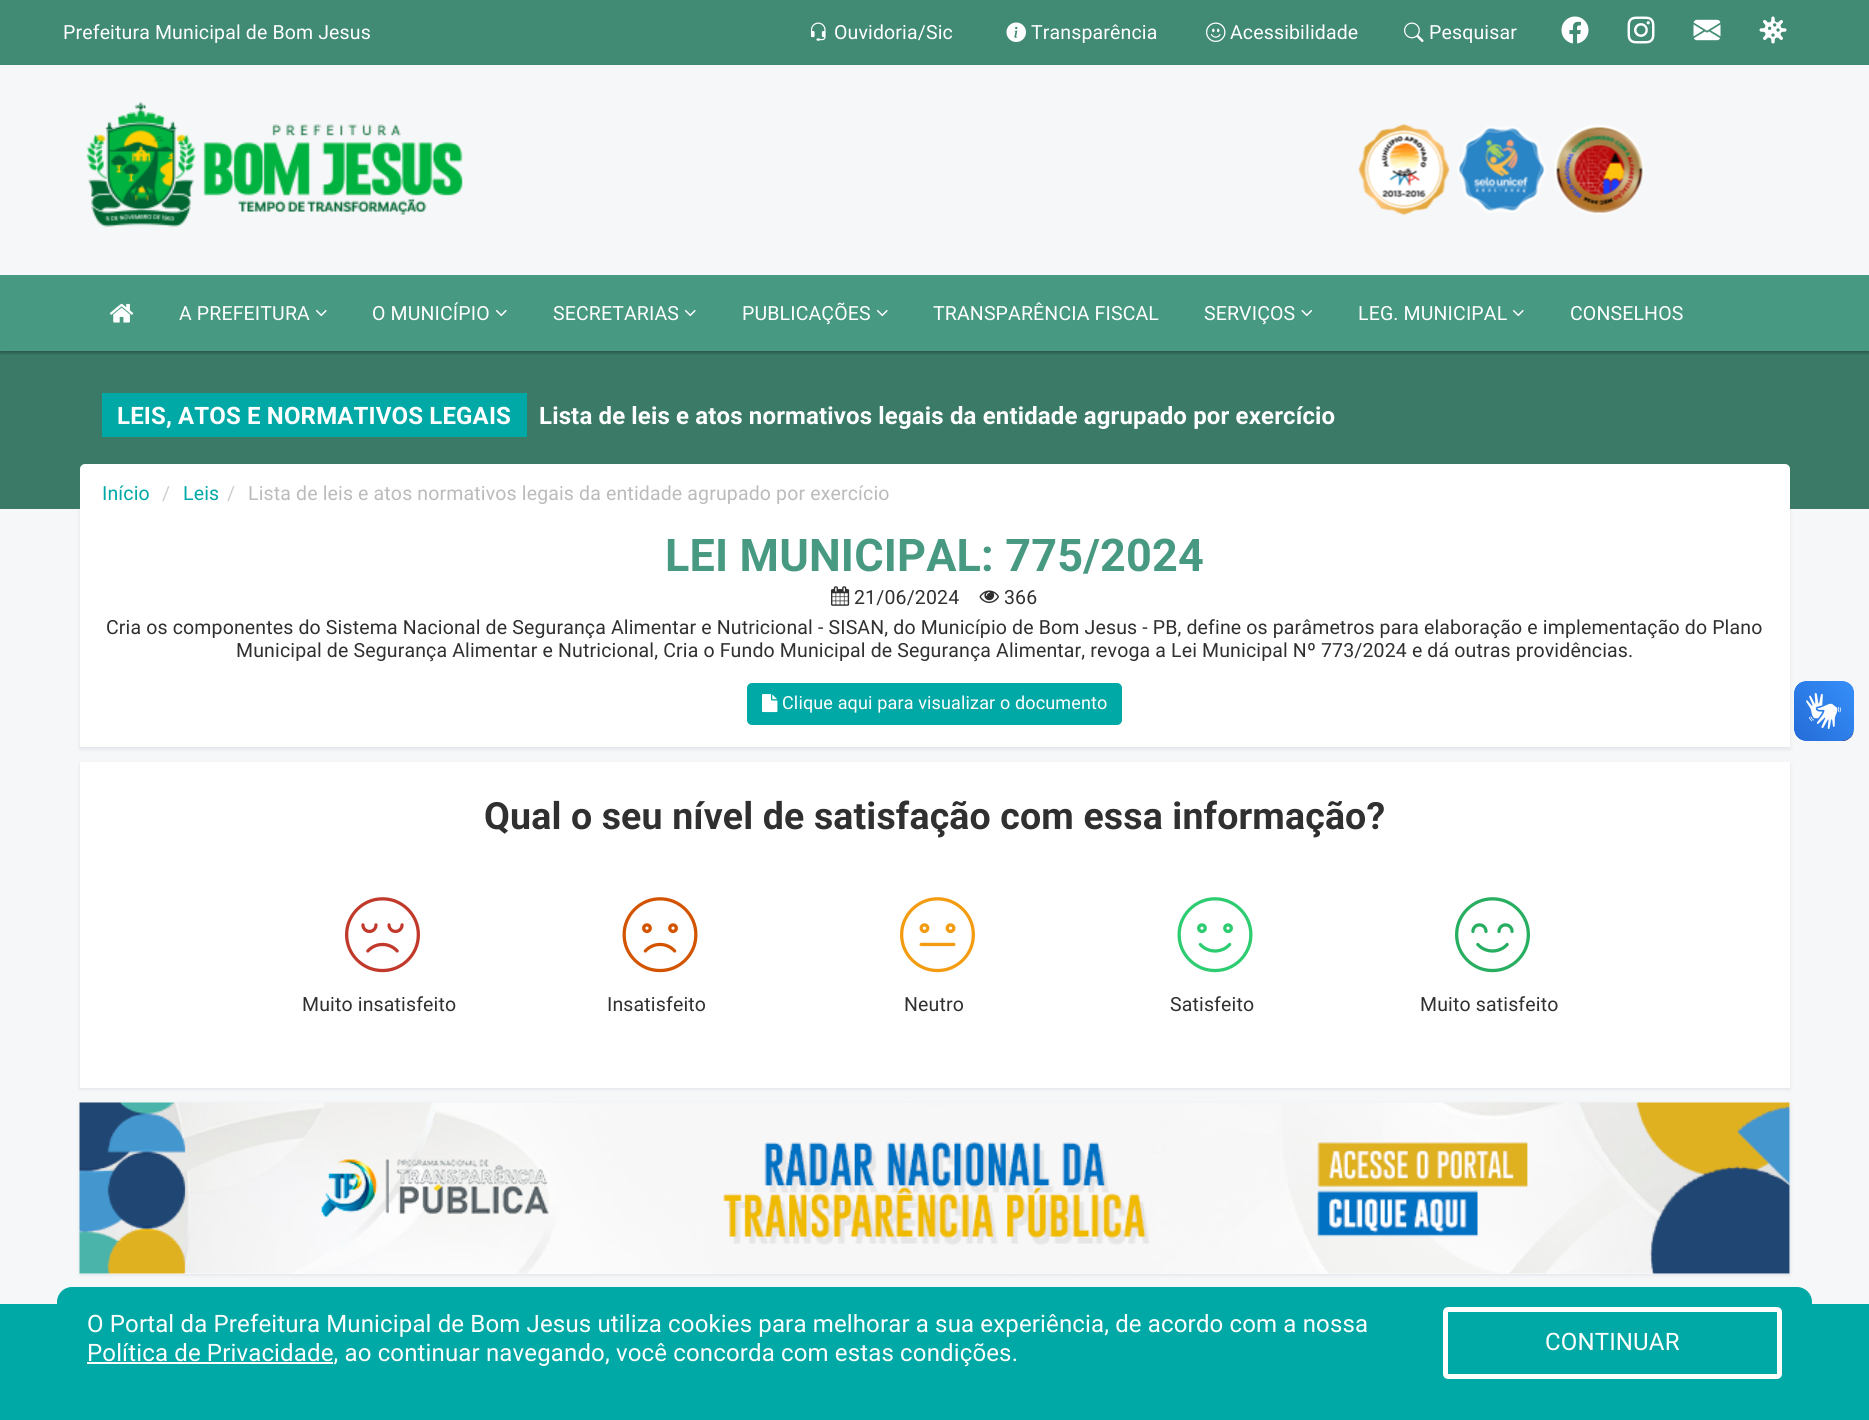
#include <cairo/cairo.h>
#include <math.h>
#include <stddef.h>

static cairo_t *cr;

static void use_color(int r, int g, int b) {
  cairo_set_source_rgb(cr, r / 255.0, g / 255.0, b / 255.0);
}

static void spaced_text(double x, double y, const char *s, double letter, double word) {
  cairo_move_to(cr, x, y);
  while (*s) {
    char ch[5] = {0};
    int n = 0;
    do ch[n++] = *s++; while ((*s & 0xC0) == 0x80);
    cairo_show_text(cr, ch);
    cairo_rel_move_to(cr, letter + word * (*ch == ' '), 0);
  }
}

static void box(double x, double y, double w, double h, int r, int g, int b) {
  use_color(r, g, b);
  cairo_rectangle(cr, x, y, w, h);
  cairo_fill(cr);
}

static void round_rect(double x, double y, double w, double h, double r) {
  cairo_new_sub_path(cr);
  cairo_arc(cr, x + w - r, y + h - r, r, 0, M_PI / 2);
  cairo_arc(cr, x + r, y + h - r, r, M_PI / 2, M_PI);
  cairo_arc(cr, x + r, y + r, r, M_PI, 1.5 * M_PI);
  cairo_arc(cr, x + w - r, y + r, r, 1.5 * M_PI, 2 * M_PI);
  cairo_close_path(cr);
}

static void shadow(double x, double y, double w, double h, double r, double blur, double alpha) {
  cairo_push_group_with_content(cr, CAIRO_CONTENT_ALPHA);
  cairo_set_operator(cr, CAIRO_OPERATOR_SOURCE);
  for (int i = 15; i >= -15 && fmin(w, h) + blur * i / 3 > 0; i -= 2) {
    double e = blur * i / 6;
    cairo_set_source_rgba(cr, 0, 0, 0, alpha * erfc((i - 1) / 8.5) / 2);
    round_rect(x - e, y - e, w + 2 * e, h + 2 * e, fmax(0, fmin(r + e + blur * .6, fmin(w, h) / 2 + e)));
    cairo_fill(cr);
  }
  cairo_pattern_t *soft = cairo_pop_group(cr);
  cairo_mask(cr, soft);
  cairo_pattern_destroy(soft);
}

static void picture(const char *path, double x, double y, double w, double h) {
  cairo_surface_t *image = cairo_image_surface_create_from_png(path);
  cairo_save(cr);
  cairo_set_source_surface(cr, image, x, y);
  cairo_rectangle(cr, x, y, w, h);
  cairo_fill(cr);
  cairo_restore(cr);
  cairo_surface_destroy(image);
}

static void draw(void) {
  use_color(246, 247, 248);
  cairo_paint(cr);
  use_color(3, 0, 71);
  shadow(80, 465, 1710, 284, 0, 2, 0.09);
  box(0, 351, 1869, 158, 58, 122, 103);
  cairo_save(cr);
  cairo_rectangle(cr, 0, 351, 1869, 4);
  cairo_clip(cr);
  use_color(0, 0, 0);
  shadow(0, 2, 1869, 351, 0, 1.5, 0.3);
  cairo_restore(cr);
  box(0, 0, 1869, 65, 65, 138, 116);
  picture("img_01.png", 810, 22, 16, 19);
  picture("img_02.png", 1006, 22, 20, 20);
  picture("img_03.png", 1206, 22, 20, 20);
  picture("img_04.png", 1404, 22, 20, 20);
  picture("img_05.png", 1561, 16, 28, 28);
  picture("img_06.png", 1627, 16, 28, 28);
  picture("img_07.png", 1693, 19, 28, 22);
  picture("img_08.png", 1759, 16, 28, 28);
  picture("img_09.png", 86, 101, 377, 126);
  picture("img_10.png", 1358, 124, 92, 91);
  picture("img_11.png", 1457, 126, 89, 87);
  picture("img_12.png", 1554, 124, 90, 91);
  box(0, 275, 1869, 76, 72, 153, 129);
  picture("img_13.png", 109, 303, 25, 20);
  picture("img_14.png", 315, 309, 12, 8);
  picture("img_14.png", 495, 309, 12, 8);
  picture("img_14.png", 684, 309, 12, 8);
  picture("img_14.png", 876, 309, 12, 8);
  picture("img_15.png", 1301, 309, 12, 8);
  picture("img_14.png", 1512, 309, 12, 8);
  box(102, 393, 425, 44, 0, 169, 166);
  box(80, 519, 1710, 228, 255, 255, 255);
  round_rect(80, 464, 1710, 60, 5);
  cairo_fill(cr);
  picture("img_16.png", 831, 586, 19, 20);
  picture("img_17.png", 979, 590, 20, 13);
  use_color(0, 169, 166);
  round_rect(747, 683, 375, 42, 5);
  cairo_fill(cr);
  picture("img_18.png", 762, 694, 16, 19);
  picture("img_19.png", 1794, 681, 60, 60);
  picture("img_20.png", 1794, 681, 60, 60);
  use_color(3, 0, 71);
  shadow(80, 764, 1710, 325, 0, 2, 0.09);
  box(80, 762, 1710, 326, 255, 255, 255);
  picture("img_21.png", 345, 897, 75, 76);
  picture("img_22.png", 622, 897, 76, 76);
  picture("img_23.png", 900, 897, 75, 76);
  picture("img_24.png", 1177, 897, 76, 76);
  picture("img_25.png", 1455, 897, 75, 76);
  use_color(3, 0, 71);
  shadow(80, 1104, 1710, 171, 0, 2, 0.09);
  box(80, 1103, 1710, 171, 255, 255, 255);
  picture("img_26.png", 79, 1102, 1711, 172);
  box(0, 1304, 1869, 116, 0, 169, 166);
  round_rect(57, 1287, 1755, 111, 15);
  cairo_fill(cr);
  box(87, 1362, 246, 2, 255, 255, 255);
  round_rect(1445.5, 1309.5, 334, 67, 2.5);
  cairo_set_line_width(cr, 5);
  cairo_stroke(cr);
  cairo_select_font_face(cr, "Roboto", CAIRO_FONT_SLANT_NORMAL, CAIRO_FONT_WEIGHT_NORMAL);
  cairo_set_font_size(cr, 19.5);
  spaced_text(63, 39, "Prefeitura Municipal de Bom Jesus", 0.15, 0);
  spaced_text(834, 39, "Ouvidoria/Sic", 0.15, 0);
  spaced_text(1031, 39, "Transparência", 0.15, 0);
  spaced_text(1230, 39, "Acessibilidade", 0.15, 0);
  spaced_text(1429, 39, "Pesquisar", 0.15, 0);
  spaced_text(179, 320, "A PREFEITURA", 0.15, 0);
  spaced_text(372, 320, "O MUNICÍPIO", 0.15, 0);
  spaced_text(553, 320, "SECRETARIAS", 0.15, 0);
  spaced_text(742, 320, "PUBLICAÇÕES", 0.15, 0);
  spaced_text(933, 320, "TRANSPARÊNCIA FISCAL", 0.15, 0);
  spaced_text(1204, 320, "SERVIÇOS", 0.15, 0);
  spaced_text(1358, 320, "LEG. MUNICIPAL", 0.15, 0);
  spaced_text(1570, 320, "CONSELHOS", 0.15, 0);
  cairo_select_font_face(cr, "Roboto", CAIRO_FONT_SLANT_NORMAL, CAIRO_FONT_WEIGHT_BOLD);
  cairo_set_font_size(cr, 24);
  spaced_text(117, 424, "LEIS, ATOS E NORMATIVOS LEGAIS", 0.15, 0);
  spaced_text(539, 424, "Lista de leis e atos normativos legais da entidade agrupado por exercício", 0.15, 0);
  cairo_select_font_face(cr, "Roboto", CAIRO_FONT_SLANT_NORMAL, CAIRO_FONT_WEIGHT_NORMAL);
  cairo_set_font_size(cr, 19.5);
  use_color(0, 169, 166);
  spaced_text(102, 500, "Início", 0.15, 0);
  use_color(204, 204, 204);
  spaced_text(162, 500, "/", 0.15, 0);
  use_color(0, 169, 166);
  spaced_text(183, 500, "Leis", 0.15, 0);
  use_color(204, 204, 204);
  spaced_text(227, 500, "/", 0.15, 0);
  use_color(187, 187, 187);
  spaced_text(248, 500, "Lista de leis e atos normativos legais da entidade agrupado por exercício", 0.15, 0);
  cairo_select_font_face(cr, "Roboto", CAIRO_FONT_SLANT_NORMAL, CAIRO_FONT_WEIGHT_BOLD);
  cairo_set_font_size(cr, 45);
  use_color(72, 153, 129);
  spaced_text(665, 571, "LEI MUNICIPAL: 775/2024", 0.15, 0);
  cairo_select_font_face(cr, "Roboto", CAIRO_FONT_SLANT_NORMAL, CAIRO_FONT_WEIGHT_NORMAL);
  cairo_set_font_size(cr, 19.5);
  use_color(48, 48, 48);
  spaced_text(854, 604, "21/06/2024", 0.15, 0);
  spaced_text(1004, 604, "366", 0.15, 0);
  spaced_text(106, 634, "Cria os componentes do Sistema Nacional de Segurança Alimentar e Nutricional - SISAN, do Município de Bom Jesus - PB, define os parâmetros para elaboração e implementação do Plano", 0.15, 0);
  spaced_text(236, 657, "Municipal de Segurança Alimentar e Nutricional, Cria o Fundo Municipal de Segurança Alimentar, revoga a Lei Municipal Nº 773/2024 e dá outras providências.", 0.15, 0);
  cairo_set_font_size(cr, 18);
  use_color(255, 255, 255);
  spaced_text(782, 709, "Clique aqui para visualizar o documento", 0.15, 0);
  cairo_select_font_face(cr, "Roboto", CAIRO_FONT_SLANT_NORMAL, CAIRO_FONT_WEIGHT_BOLD);
  cairo_set_font_size(cr, 37.5);
  use_color(48, 48, 48);
  spaced_text(484, 829, "Qual o seu nível de satisfação com essa informação?", 0.15, 0);
  cairo_select_font_face(cr, "Roboto", CAIRO_FONT_SLANT_NORMAL, CAIRO_FONT_WEIGHT_NORMAL);
  cairo_set_font_size(cr, 19.5);
  spaced_text(302, 1011, "Muito insatisfeito", 0.15, 0);
  spaced_text(607, 1011, "Insatisfeito", 0.15, 0);
  spaced_text(904, 1011, "Neutro", 0.15, 0);
  spaced_text(1170, 1011, "Satisfeito", 0.15, 0);
  spaced_text(1420, 1011, "Muito satisfeito", 0.15, 0);
  cairo_set_font_size(cr, 24);
  use_color(255, 255, 255);
  spaced_text(87, 1332, "O Portal da Prefeitura Municipal de Bom Jesus utiliza cookies para melhorar a sua experiência, de acordo com a nossa", 0.15, 0);
  spaced_text(87, 1361, "Política de Privacidade, ao continuar navegando, você concorda com estas condições.", 0.15, 0);
  spaced_text(1545, 1350, "CONTINUAR", 0.15, 0);
}

int main(void) {
  cairo_surface_t *surface = cairo_image_surface_create(CAIRO_FORMAT_RGB24, 1869, 1420);
  cr = cairo_create(surface);
  cairo_font_options_t *options = cairo_font_options_create();
  cairo_font_options_set_hint_metrics(options, CAIRO_HINT_METRICS_OFF);
  cairo_font_options_set_hint_style(options, CAIRO_HINT_STYLE_NONE);
  cairo_set_font_options(cr, options);
  cairo_set_miter_limit(cr, 4);
  draw();
  cairo_surface_write_to_png(surface, "out.png");
  cairo_font_options_destroy(options);
  cairo_destroy(cr);
  cairo_surface_destroy(surface);
  return 0;
}
